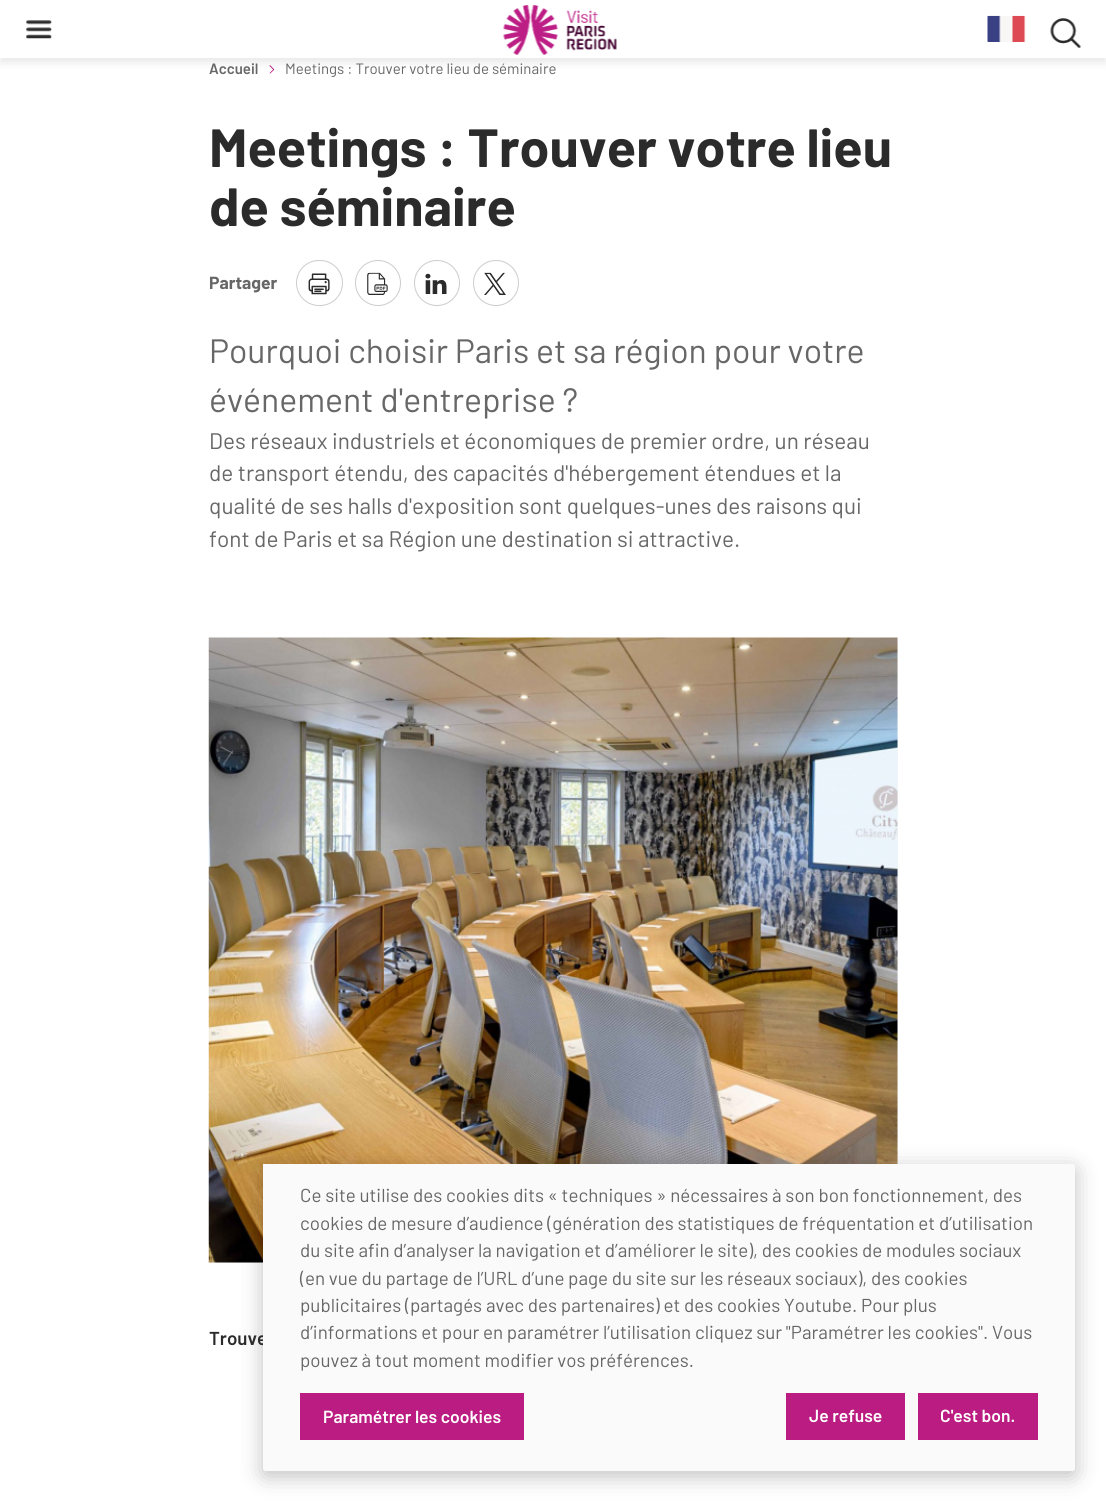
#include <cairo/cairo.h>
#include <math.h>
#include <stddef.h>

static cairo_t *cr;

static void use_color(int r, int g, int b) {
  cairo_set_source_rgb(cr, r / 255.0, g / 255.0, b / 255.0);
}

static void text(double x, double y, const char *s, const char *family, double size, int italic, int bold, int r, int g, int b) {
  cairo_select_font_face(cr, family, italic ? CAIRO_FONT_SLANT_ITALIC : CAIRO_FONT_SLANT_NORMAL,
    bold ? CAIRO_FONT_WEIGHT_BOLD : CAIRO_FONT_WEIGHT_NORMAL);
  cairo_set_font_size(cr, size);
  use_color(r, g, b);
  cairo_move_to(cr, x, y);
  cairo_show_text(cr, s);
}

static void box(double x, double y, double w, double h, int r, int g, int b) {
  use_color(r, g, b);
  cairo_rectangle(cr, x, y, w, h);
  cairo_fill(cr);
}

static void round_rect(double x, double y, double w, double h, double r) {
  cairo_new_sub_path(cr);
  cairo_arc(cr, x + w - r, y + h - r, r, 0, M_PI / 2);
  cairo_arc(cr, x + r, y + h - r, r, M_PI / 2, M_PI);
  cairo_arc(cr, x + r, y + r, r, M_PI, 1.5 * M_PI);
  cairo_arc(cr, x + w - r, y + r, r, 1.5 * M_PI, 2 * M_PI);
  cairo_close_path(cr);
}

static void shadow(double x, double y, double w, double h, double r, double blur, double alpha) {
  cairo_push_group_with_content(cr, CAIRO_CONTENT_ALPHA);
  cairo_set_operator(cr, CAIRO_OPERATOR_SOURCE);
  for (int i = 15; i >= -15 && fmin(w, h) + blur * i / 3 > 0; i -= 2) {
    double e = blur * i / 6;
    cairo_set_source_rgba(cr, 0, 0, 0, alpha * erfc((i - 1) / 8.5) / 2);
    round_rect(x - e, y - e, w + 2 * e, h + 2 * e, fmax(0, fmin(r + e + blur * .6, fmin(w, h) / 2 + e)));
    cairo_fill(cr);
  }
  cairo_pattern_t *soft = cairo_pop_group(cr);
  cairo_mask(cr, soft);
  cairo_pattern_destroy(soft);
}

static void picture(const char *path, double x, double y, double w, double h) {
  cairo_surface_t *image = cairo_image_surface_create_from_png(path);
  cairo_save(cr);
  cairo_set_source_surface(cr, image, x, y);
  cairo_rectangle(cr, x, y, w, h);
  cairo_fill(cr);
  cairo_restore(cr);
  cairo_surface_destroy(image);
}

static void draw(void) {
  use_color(255, 255, 255);
  cairo_paint(cr);
  picture("img_05.png", 269, 65, 6, 9);
  use_color(37, 37, 37);
  shadow(0, 5, 1106, 58, 0, 4, 0.1);
  box(0, 0, 1106, 58, 255, 255, 255);
  picture("img_01.png", 503, 5, 114, 50);
  picture("img_02.png", 26, 20, 26, 19);
  picture("img_03.png", 987, 15, 39, 27);
  picture("img_04.png", 1050, 18, 31, 30);
  round_rect(296.5, 260.5, 46, 45, 22.5);
  use_color(204, 204, 204);
  cairo_set_line_width(cr, 1);
  cairo_stroke(cr);
  picture("img_06.png", 308, 273, 22, 22);
  cairo_arc(cr, 378, 283, 22.5, 0, 2 * M_PI);
  cairo_stroke(cr);
  picture("img_07.png", 367, 272, 21, 23);
  cairo_arc(cr, 437, 283, 22.5, 0, 2 * M_PI);
  cairo_stroke(cr);
  picture("img_08.png", 425, 273, 22, 21);
  cairo_arc(cr, 496, 283, 22.5, 0, 2 * M_PI);
  cairo_stroke(cr);
  picture("img_09.png", 484, 272, 22, 23);
  box(209, 638, 689, 625, 244, 244, 244);
  picture("img_10.png", 208, 637, 690, 626);
  use_color(0, 0, 0);
  shadow(263, 1169, 812, 307, 2.5, 11, 0.25);
  text(209, 74, "Accueil", "Barlow SemiBold", 15, 0, 0, 103, 103, 103);
  text(285, 74, "Meetings : Trouver votre lieu de séminaire", "Barlow", 15, 0, 0, 103, 103, 103);
  text(209, 167, "Meetings : Trouver votre lieu", "Barlow", 53.75, 0, 1, 43, 43, 43);
  text(209, 226, "de séminaire", "Barlow", 53.75, 0, 1, 43, 43, 43);
  text(209, 289, "Partager", "Barlow", 17.5, 0, 1, 103, 103, 103);
  text(209, 363, "Pourquoi choisir Paris et sa région pour votre", "Barlow", 33.75, 0, 0, 103, 103, 103);
  text(209, 412, "événement d'entreprise ?", "Barlow", 33.75, 0, 0, 103, 103, 103);
  text(209, 449, "Des réseaux industriels et économiques de premier ordre, un réseau", "Barlow", 22.5, 0, 0, 103, 103, 103);
  text(209, 481, "de transport étendu, des capacités d'hébergement étendues et la", "Barlow", 22.5, 0, 0, 103, 103, 103);
  text(209, 514, "qualité de ses halls d'exposition sont quelques-unes des raisons qui", "Barlow", 22.5, 0, 0, 103, 103, 103);
  text(209, 547, "font de Paris et sa Région une destination si attractive.", "Barlow", 22.5, 0, 0, 103, 103, 103);
  text(209, 1345, "Trouve", "Barlow SemiBold", 18.75, 0, 0, 43, 43, 43);
  use_color(250, 250, 250);
  cairo_new_path(cr);
  cairo_move_to(cr, 263, 1164);
  cairo_line_to(cr, 1072.5, 1164);
  cairo_curve_to(cr, 1074, 1164, 1075, 1165, 1075, 1166.5);
  cairo_line_to(cr, 1075, 1468.5);
  cairo_curve_to(cr, 1075, 1470, 1074, 1471, 1072.5, 1471);
  cairo_line_to(cr, 265.5, 1471);
  cairo_curve_to(cr, 264, 1471, 263, 1470, 263, 1468.5);
  cairo_close_path(cr);
  cairo_fill(cr);
  text(300, 1202, "Ce site utilise des cookies dits « techniques » nécessaires à son bon fonctionnement, des", "Barlow", 18.75, 0, 0, 103, 103, 103);
  text(300, 1230, "cookies de mesure d’audience (génération des statistiques de fréquentation et d’utilisation", "Barlow", 18.75, 0, 0, 103, 103, 103);
  text(300, 1257, "du site afin d’analyser la navigation et d’améliorer le site), des cookies de modules sociaux", "Barlow", 18.75, 0, 0, 103, 103, 103);
  text(300, 1285, "(en vue du partage de l’URL d’une page du site sur les réseaux sociaux), des cookies", "Barlow", 18.75, 0, 0, 103, 103, 103);
  text(300, 1312, "publicitaires (partagés avec des partenaires) et des cookies Youtube. Pour plus", "Barlow", 18.75, 0, 0, 103, 103, 103);
  text(300, 1339, "d’informations et pour en paramétrer l’utilisation cliquez sur \"Paramétrer les cookies\". Vous", "Barlow", 18.75, 0, 0, 103, 103, 103);
  text(300, 1367, "pouvez à tout moment modifier vos préférences.", "Barlow", 18.75, 0, 0, 103, 103, 103);
  box(300, 1393, 224, 47, 187, 28, 129);
  text(323, 1423, "Paramétrer les cookies", "Barlow SemiBold", 17.5, 0, 0, 255, 255, 255);
  box(786, 1393, 119, 47, 187, 28, 129);
  text(809, 1422, "Je refuse", "Barlow SemiBold", 17.5, 0, 0, 255, 255, 255);
  box(918, 1393, 120, 47, 187, 28, 129);
  text(940, 1422, "C'est bon.", "Barlow SemiBold", 17.5, 0, 0, 255, 255, 255);
}

int main(void) {
  cairo_surface_t *surface = cairo_image_surface_create(CAIRO_FORMAT_RGB24, 1106, 1502);
  cr = cairo_create(surface);
  cairo_font_options_t *options = cairo_font_options_create();
  cairo_font_options_set_hint_metrics(options, CAIRO_HINT_METRICS_OFF);
  cairo_font_options_set_hint_style(options, CAIRO_HINT_STYLE_NONE);
  cairo_set_font_options(cr, options);
  cairo_set_miter_limit(cr, 4);
  draw();
  cairo_surface_write_to_png(surface, "out.png");
  cairo_font_options_destroy(options);
  cairo_destroy(cr);
  cairo_surface_destroy(surface);
  return 0;
}
